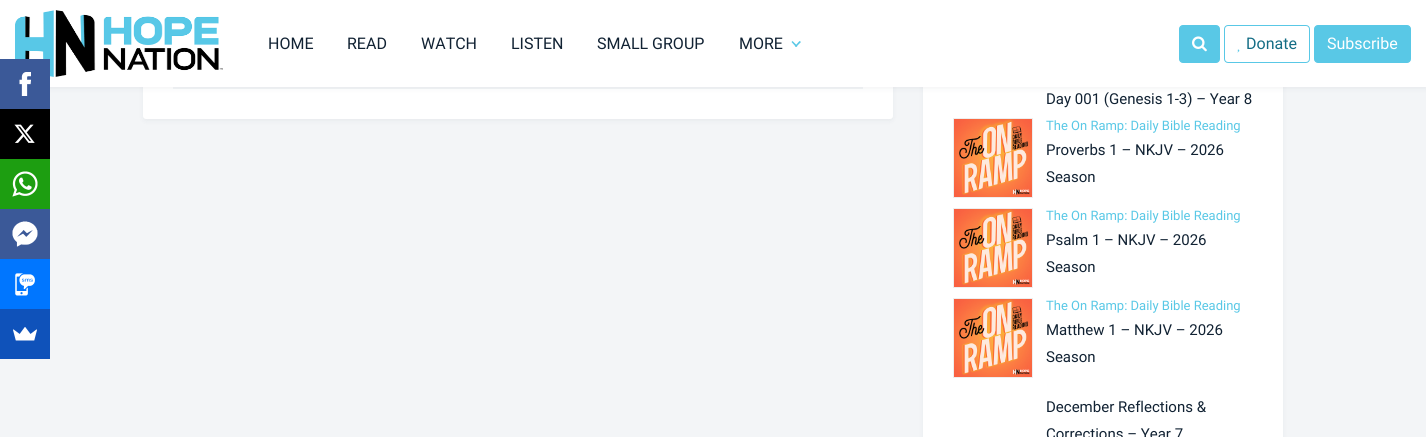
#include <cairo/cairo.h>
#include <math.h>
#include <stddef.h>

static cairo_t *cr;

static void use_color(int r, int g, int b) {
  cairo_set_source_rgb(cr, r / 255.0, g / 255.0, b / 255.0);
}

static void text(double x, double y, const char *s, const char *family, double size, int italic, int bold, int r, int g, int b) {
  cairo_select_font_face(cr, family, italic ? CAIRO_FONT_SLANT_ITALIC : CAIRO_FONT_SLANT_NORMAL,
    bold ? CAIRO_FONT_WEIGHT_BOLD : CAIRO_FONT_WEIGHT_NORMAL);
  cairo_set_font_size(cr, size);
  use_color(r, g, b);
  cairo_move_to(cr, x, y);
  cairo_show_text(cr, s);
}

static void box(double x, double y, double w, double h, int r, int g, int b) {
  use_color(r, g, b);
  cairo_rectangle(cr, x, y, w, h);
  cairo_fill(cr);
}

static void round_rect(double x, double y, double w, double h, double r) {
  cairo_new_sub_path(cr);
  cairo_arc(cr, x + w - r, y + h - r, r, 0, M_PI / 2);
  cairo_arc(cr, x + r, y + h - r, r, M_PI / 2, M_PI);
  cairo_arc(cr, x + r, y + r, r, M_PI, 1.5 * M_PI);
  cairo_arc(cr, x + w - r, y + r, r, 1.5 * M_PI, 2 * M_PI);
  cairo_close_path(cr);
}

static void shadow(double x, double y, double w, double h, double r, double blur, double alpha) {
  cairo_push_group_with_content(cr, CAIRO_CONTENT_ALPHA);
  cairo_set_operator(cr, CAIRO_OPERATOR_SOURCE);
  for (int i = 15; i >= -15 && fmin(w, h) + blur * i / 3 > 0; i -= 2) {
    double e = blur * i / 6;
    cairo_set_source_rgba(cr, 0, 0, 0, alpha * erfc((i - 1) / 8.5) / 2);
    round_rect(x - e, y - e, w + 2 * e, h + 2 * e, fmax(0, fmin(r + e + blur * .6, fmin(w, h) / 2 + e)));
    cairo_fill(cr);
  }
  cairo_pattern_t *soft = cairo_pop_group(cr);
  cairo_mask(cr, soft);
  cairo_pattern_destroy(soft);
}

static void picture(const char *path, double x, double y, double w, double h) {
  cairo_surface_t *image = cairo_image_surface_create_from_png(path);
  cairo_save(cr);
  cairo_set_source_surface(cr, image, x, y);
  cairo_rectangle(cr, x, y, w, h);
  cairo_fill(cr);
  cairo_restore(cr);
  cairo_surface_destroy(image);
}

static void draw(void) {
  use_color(243, 245, 247);
  cairo_paint(cr);
  use_color(17, 34, 51);
  shadow(143, 8, 750, 113, 3, 2.5, 0.05);
  use_color(255, 255, 255);
  round_rect(143, 6, 750, 113, 3);
  cairo_fill(cr);
  box(173, 87, 690, 2, 243, 245, 247);
  use_color(17, 34, 51);
  shadow(923, 8, 360, 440, 3, 2.5, 0.05);
  box(923, 87, 360, 350, 255, 255, 255);
  use_color(17, 34, 51);
  shadow(0, 2, 1426, 87, 0, 2.5, 0.05);
  box(0, 0, 1426, 87, 255, 255, 255);
  picture("img_07.png", 15, 10, 208, 67);
  box(0, 59, 50, 50, 59, 89, 152);
  picture("img_01.png", 19, 72, 12, 24);
  box(0, 109, 50, 50, 0, 0, 0);
  picture("img_02.png", 14, 124, 21, 19);
  box(0, 159, 50, 50, 29, 158, 17);
  picture("img_03.png", 12, 171, 26, 26);
  box(0, 209, 50, 50, 59, 89, 152);
  picture("img_04.png", 12, 221, 26, 26);
  box(0, 259, 50, 50, 0, 118, 255);
  picture("img_05.png", 15, 273, 20, 23);
  box(0, 309, 50, 50, 15, 82, 186);
  picture("img_06.png", 13, 327, 24, 14);
  use_color(89, 200, 230);
  cairo_new_path(cr);
  cairo_move_to(cr, 801, 42);
  cairo_line_to(cr, 796, 47);
  cairo_line_to(cr, 795, 46);
  cairo_line_to(cr, 799.5, 41);
  cairo_close_path(cr);
  cairo_fill(cr);
  cairo_new_path(cr);
  cairo_move_to(cr, 797.5, 46);
  cairo_line_to(cr, 796, 47);
  cairo_line_to(cr, 791.5, 42);
  cairo_line_to(cr, 792.5, 41);
  cairo_close_path(cr);
  cairo_fill(cr);
  round_rect(1179.5, 25.5, 40, 37, 3.5);
  cairo_fill_preserve(cr);
  cairo_set_line_width(cr, 1);
  cairo_stroke(cr);
  picture("img_08.png", 1192, 36, 15, 16);
  round_rect(1224.5, 25.5, 85, 37, 3.5);
  cairo_stroke(cr);
  picture("img_09.png", 1237, 49, 3, 4);
  round_rect(1314.5, 25.5, 96, 37, 3.5);
  cairo_fill_preserve(cr);
  cairo_stroke(cr);
  cairo_rectangle(cr, 953.5, 118.5, 79, 79);
  use_color(238, 238, 238);
  cairo_stroke(cr);
  picture("img_10.png", 954, 119, 78, 78);
  cairo_rectangle(cr, 953.5, 208.5, 79, 79);
  cairo_stroke(cr);
  picture("img_10.png", 954, 209, 78, 78);
  cairo_rectangle(cr, 953.5, 298.5, 79, 79);
  cairo_stroke(cr);
  picture("img_10.png", 954, 299, 78, 78);
  text(268, 49, "HOME", "Roboto", 16, 0, 0, 17, 34, 51);
  text(347, 49, "READ", "Roboto", 16, 0, 0, 17, 34, 51);
  text(421, 49, "WATCH", "Roboto", 16, 0, 0, 17, 34, 51);
  text(511, 49, "LISTEN", "Roboto", 16, 0, 0, 17, 34, 51);
  text(597, 49, "SMALL GROUP", "Roboto", 16, 0, 0, 17, 34, 51);
  text(739, 49, "MORE", "Roboto", 16, 0, 0, 17, 34, 51);
  text(1246, 49, "Donate", "Roboto", 16, 0, 0, 20, 109, 133);
  text(1327, 49, "Subscribe", "Roboto", 16, 0, 0, 255, 255, 255);
  text(1046, 104, "Day 001 (Genesis 1-3) – Year 8", "Roboto", 15, 0, 0, 17, 34, 51);
  text(1046, 130, "The On Ramp: Daily Bible Reading", "Roboto", 13, 0, 0, 89, 200, 230);
  text(1046, 155, "Proverbs 1 – NKJV – 2026", "Roboto", 15, 0, 0, 17, 34, 51);
  text(1046, 182, "Season", "Roboto", 15, 0, 0, 17, 34, 51);
  text(1046, 220, "The On Ramp: Daily Bible Reading", "Roboto", 13, 0, 0, 89, 200, 230);
  text(1046, 245, "Psalm 1 – NKJV – 2026", "Roboto", 15, 0, 0, 17, 34, 51);
  text(1046, 272, "Season", "Roboto", 15, 0, 0, 17, 34, 51);
  text(1046, 310, "The On Ramp: Daily Bible Reading", "Roboto", 13, 0, 0, 89, 200, 230);
  text(1046, 335, "Matthew 1 – NKJV – 2026", "Roboto", 15, 0, 0, 17, 34, 51);
  text(1046, 362, "Season", "Roboto", 15, 0, 0, 17, 34, 51);
  text(1046, 412, "December Reflections &", "Roboto", 15, 0, 0, 17, 34, 51);
  text(1046, 439, "Corrections – Year 7", "Roboto", 15, 0, 0, 17, 34, 51);
}

int main(void) {
  cairo_surface_t *surface = cairo_image_surface_create(CAIRO_FORMAT_RGB24, 1426, 437);
  cr = cairo_create(surface);
  cairo_font_options_t *options = cairo_font_options_create();
  cairo_font_options_set_hint_metrics(options, CAIRO_HINT_METRICS_OFF);
  cairo_font_options_set_hint_style(options, CAIRO_HINT_STYLE_NONE);
  cairo_set_font_options(cr, options);
  cairo_set_miter_limit(cr, 4);
  draw();
  cairo_surface_write_to_png(surface, "out.png");
  cairo_font_options_destroy(options);
  cairo_destroy(cr);
  cairo_surface_destroy(surface);
  return 0;
}
